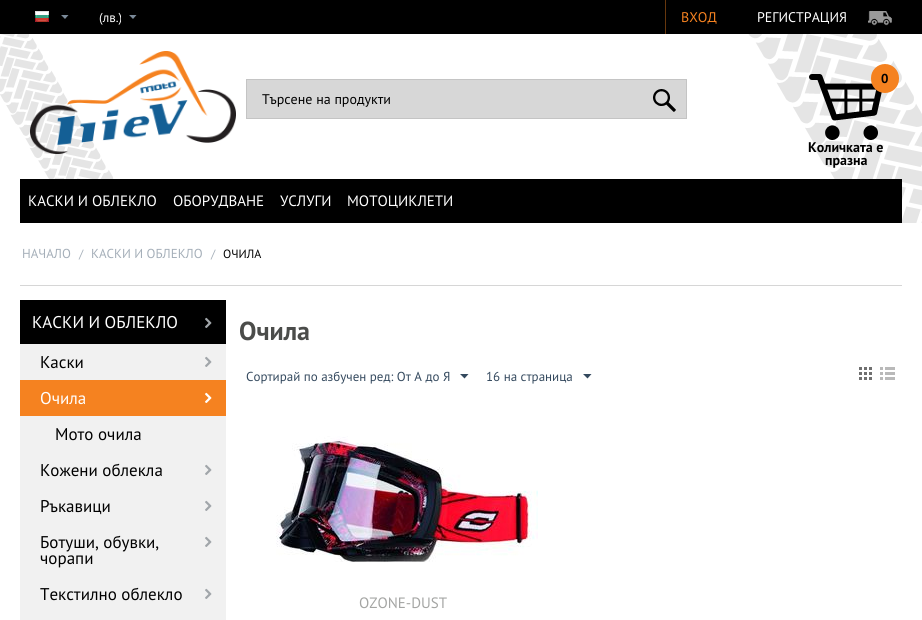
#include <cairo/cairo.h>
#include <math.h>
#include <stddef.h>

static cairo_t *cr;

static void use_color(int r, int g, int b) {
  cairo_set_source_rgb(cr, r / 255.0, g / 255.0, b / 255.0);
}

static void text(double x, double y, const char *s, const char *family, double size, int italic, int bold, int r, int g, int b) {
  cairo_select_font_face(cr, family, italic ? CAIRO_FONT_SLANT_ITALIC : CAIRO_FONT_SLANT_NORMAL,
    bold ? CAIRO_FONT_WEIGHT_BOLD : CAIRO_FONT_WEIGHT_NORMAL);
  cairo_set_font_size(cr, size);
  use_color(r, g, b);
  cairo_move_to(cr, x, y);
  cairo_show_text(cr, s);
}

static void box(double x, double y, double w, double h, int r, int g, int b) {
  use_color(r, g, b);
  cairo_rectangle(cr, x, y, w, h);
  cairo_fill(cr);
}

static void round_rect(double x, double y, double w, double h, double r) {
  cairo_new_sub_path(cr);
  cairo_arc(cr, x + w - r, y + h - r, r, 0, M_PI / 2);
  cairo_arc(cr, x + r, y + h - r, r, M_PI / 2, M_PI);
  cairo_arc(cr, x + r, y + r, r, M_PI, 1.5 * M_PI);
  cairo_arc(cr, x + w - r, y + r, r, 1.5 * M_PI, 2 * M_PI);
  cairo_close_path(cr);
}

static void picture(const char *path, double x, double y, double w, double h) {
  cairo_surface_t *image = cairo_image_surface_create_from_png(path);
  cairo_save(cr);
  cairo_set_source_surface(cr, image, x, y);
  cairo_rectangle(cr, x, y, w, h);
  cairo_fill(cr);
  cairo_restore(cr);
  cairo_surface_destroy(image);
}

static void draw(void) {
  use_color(0, 0, 0);
  cairo_paint(cr);
  picture("img_01.png", 35, 11, 14, 11);
  use_color(122, 137, 152);
  cairo_new_path(cr);
  cairo_move_to(cr, 65, 19);
  cairo_line_to(cr, 61, 15);
  cairo_line_to(cr, 68.5, 15);
  cairo_close_path(cr);
  cairo_fill(cr);
  cairo_new_path(cr);
  cairo_move_to(cr, 133, 19);
  cairo_line_to(cr, 129, 15);
  cairo_line_to(cr, 136.5, 15);
  cairo_close_path(cr);
  cairo_fill(cr);
  box(665, 0, 1, 34, 103, 55, 13);
  picture("img_02.png", 868, 11, 24, 15);
  box(0, 34, 922, 586, 255, 255, 255);
  picture("img_03.png", 0, 34, 922, 189);
  picture("img_04.png", 30, 51, 206, 103);
  use_color(215, 215, 215);
  cairo_rectangle(cr, 246.5, 79.5, 440, 39);
  cairo_fill_preserve(cr);
  use_color(196, 196, 196);
  cairo_set_line_width(cr, 1);
  cairo_stroke(cr);
  picture("img_05.png", 653, 89, 23, 23);
  picture("img_06.png", 809, 74, 73, 66);
  use_color(245, 130, 32);
  round_rect(871, 64, 28, 29, 14);
  cairo_fill(cr);
  box(20, 179, 882, 44, 0, 0, 0);
  box(20, 285, 882, 1, 214, 214, 214);
  box(20, 300, 206, 44, 0, 0, 0);
  picture("img_07.png", 205, 317, 7, 11);
  box(20, 344, 206, 276, 241, 241, 241);
  picture("img_08.png", 205, 356, 7, 11);
  box(20, 380, 206, 36, 245, 130, 32);
  picture("img_09.png", 205, 392, 7, 11);
  picture("img_08.png", 205, 464, 7, 11);
  picture("img_08.png", 205, 500, 7, 11);
  picture("img_08.png", 205, 536, 7, 11);
  picture("img_08.png", 205, 588, 7, 11);
  use_color(52, 73, 94);
  cairo_new_path(cr);
  cairo_move_to(cr, 464.5, 378.5);
  cairo_line_to(cr, 460, 374);
  cairo_line_to(cr, 468.5, 374);
  cairo_close_path(cr);
  cairo_fill(cr);
  cairo_new_path(cr);
  cairo_move_to(cr, 587.5, 378.5);
  cairo_line_to(cr, 583, 374);
  cairo_line_to(cr, 591.5, 374);
  cairo_close_path(cr);
  cairo_fill(cr);
  picture("img_10.png", 859, 367, 13, 13);
  picture("img_11.png", 880, 367, 15, 13);
  picture("img_12.png", 276, 436, 262, 126);
  text(99, 22, "(лв.)", "PT Sans", 13, 0, 0, 255, 255, 255);
  text(681, 22, "ВХОД", "PT Sans", 14, 0, 0, 245, 130, 32);
  text(757, 22, "РЕГИСТРАЦИЯ", "PT Sans", 14, 0, 0, 255, 255, 255);
  text(262, 104, "Търсене на продукти", "PT Sans", 14, 0, 0, 0, 0, 0);
  text(881, 83, "0", "PT Sans", 13, 0, 1, 0, 0, 0);
  text(808, 152, "Количката е", "PT Sans", 14, 0, 1, 0, 0, 0);
  text(825, 165, "празна", "PT Sans", 14, 0, 1, 0, 0, 0);
  text(28, 206, "КАСКИ И ОБЛЕКЛО", "PT Sans", 15, 0, 0, 255, 255, 255);
  text(173, 206, "ОБОРУДВАНЕ", "PT Sans", 15, 0, 0, 255, 255, 255);
  text(280, 206, "УСЛУГИ", "PT Sans", 15, 0, 0, 255, 255, 255);
  text(347, 206, "МОТОЦИКЛЕТИ", "PT Sans", 15, 0, 0, 255, 255, 255);
  text(22, 258, "НАЧАЛО", "PT Sans", 13, 0, 0, 165, 175, 185);
  text(79, 258, "/", "PT Sans", 12, 0, 0, 165, 175, 185);
  text(91, 258, "КАСКИ И ОБЛЕКЛО", "PT Sans", 13, 0, 0, 165, 175, 185);
  text(211, 258, "/", "PT Sans", 12, 0, 0, 165, 175, 185);
  text(223, 258, "ОЧИЛА", "PT Sans", 12, 0, 0, 0, 0, 0);
  text(32, 328, "КАСКИ И ОБЛЕКЛО", "PT Sans", 17, 0, 0, 255, 255, 255);
  text(40, 368, "Каски", "PT Sans", 17, 0, 0, 0, 0, 0);
  text(40, 404, "Очила", "PT Sans", 17, 0, 0, 255, 255, 255);
  text(55, 440, "Мото очила", "PT Sans", 17, 0, 0, 0, 0, 0);
  text(40, 476, "Кожени облекла", "PT Sans", 17, 0, 0, 0, 0, 0);
  text(40, 512, "Ръкавици", "PT Sans", 17, 0, 0, 0, 0, 0);
  text(40, 548, "Ботуши, обувки,", "PT Sans", 17, 0, 0, 0, 0, 0);
  text(40, 564, "чорапи", "PT Sans", 17, 0, 0, 0, 0, 0);
  text(40, 600, "Текстилно облекло", "PT Sans", 17, 0, 0, 0, 0, 0);
  text(239, 340, "Очила", "PT Sans", 26, 0, 1, 75, 76, 74);
  text(246, 381, "Сортирай по азбучен ред: От А до Я", "PT Sans", 13, 0, 0, 52, 73, 94);
  text(486, 381, "16 на страница", "PT Sans", 13, 0, 0, 52, 73, 94);
  text(359, 608, "OZONE-DUSТ", "PT Sans", 15, 0, 0, 164, 165, 163);
}

int main(void) {
  cairo_surface_t *surface = cairo_image_surface_create(CAIRO_FORMAT_RGB24, 922, 620);
  cr = cairo_create(surface);
  cairo_font_options_t *options = cairo_font_options_create();
  cairo_font_options_set_hint_metrics(options, CAIRO_HINT_METRICS_OFF);
  cairo_font_options_set_hint_style(options, CAIRO_HINT_STYLE_NONE);
  cairo_set_font_options(cr, options);
  cairo_set_miter_limit(cr, 4);
  draw();
  cairo_surface_write_to_png(surface, "out.png");
  cairo_font_options_destroy(options);
  cairo_destroy(cr);
  cairo_surface_destroy(surface);
  return 0;
}
